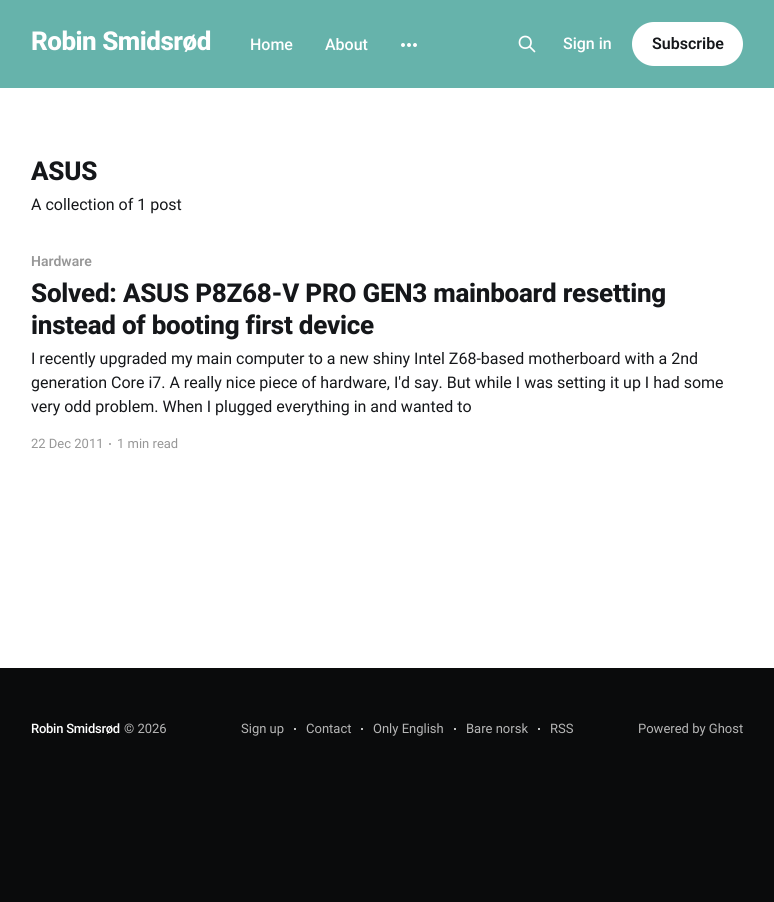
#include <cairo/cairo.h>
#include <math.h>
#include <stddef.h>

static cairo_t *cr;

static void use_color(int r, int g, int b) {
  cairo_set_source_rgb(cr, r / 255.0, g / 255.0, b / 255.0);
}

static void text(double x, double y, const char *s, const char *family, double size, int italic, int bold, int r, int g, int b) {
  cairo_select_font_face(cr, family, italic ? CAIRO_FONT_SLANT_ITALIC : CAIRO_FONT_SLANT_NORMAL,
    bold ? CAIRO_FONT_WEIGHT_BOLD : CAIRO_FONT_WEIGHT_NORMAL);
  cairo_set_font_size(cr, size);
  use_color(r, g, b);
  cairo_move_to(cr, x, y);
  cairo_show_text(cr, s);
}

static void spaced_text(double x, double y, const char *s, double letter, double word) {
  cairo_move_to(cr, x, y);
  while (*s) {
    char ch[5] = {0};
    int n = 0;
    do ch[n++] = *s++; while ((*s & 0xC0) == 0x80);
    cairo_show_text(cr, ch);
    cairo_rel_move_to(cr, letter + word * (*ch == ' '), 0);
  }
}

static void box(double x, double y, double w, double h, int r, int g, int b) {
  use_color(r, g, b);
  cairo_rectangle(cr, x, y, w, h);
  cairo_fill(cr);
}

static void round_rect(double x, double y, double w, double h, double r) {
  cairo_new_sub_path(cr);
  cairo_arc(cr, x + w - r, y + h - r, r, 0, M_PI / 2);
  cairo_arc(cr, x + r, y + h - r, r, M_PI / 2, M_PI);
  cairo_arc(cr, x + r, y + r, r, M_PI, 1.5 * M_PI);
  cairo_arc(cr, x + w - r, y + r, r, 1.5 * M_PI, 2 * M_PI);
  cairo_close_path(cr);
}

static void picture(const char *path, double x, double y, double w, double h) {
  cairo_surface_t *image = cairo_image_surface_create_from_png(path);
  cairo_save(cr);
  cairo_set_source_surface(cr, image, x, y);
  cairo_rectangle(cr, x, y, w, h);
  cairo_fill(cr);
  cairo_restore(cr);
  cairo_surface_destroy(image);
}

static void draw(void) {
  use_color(255, 255, 255);
  cairo_paint(cr);
  box(0, 0, 774, 88, 102, 179, 171);
  picture("img_01.png", 401, 43, 16, 4);
  cairo_new_path(cr);
  cairo_move_to(cr, 534.5, 51.5);
  cairo_line_to(cr, 529.5, 46.5);
  cairo_move_to(cr, 531, 42.5);
  cairo_curve_to(cr, 531, 50, 519.5, 50, 519.5, 42.5);
  cairo_curve_to(cr, 519.5, 34.5, 531, 34.5, 531, 42.5);
  cairo_close_path(cr);
  use_color(255, 255, 255);
  cairo_set_line_width(cr, 1.7);
  cairo_set_line_cap(cr, CAIRO_LINE_CAP_ROUND);
  cairo_set_line_join(cr, CAIRO_LINE_JOIN_ROUND);
  cairo_stroke(cr);
  round_rect(632, 22, 111, 44, 22);
  cairo_fill(cr);
  use_color(151, 151, 151);
  cairo_arc(cr, 110, 444, 1, 0, 2 * M_PI);
  cairo_fill(cr);
  box(0, 668, 774, 234, 10, 11, 12);
  use_color(255, 255, 255);
  cairo_arc(cr, 295, 729, 1, 0, 2 * M_PI);
  cairo_fill(cr);
  cairo_arc(cr, 362, 729, 1, 0, 2 * M_PI);
  cairo_fill(cr);
  cairo_arc(cr, 455, 729, 1, 0, 2 * M_PI);
  cairo_fill(cr);
  cairo_arc(cr, 539, 729, 1, 0, 2 * M_PI);
  cairo_fill(cr);
  cairo_select_font_face(cr, "Roboto ExtraBold", CAIRO_FONT_SLANT_NORMAL, CAIRO_FONT_WEIGHT_NORMAL);
  cairo_set_font_size(cr, 26);
  spaced_text(31, 50, "Robin Smidsrød", -0.5, 0);
  text(250, 50, "Home", "Roboto Medium", 16, 0, 0, 255, 255, 255);
  text(325, 50, "About", "Roboto Medium", 16, 0, 0, 255, 255, 255);
  text(563, 49, "Sign in", "Roboto Medium", 16, 0, 0, 255, 255, 255);
  text(652, 49, "Subscribe", "Roboto SemiBold", 16, 0, 0, 21, 23, 26);
  cairo_select_font_face(cr, "Roboto ExtraBold", CAIRO_FONT_SLANT_NORMAL, CAIRO_FONT_WEIGHT_NORMAL);
  cairo_set_font_size(cr, 26);
  spaced_text(31, 180, "ASUS", -0.25, 0);
  text(31, 210, "A collection of 1 post", "Roboto", 16, 0, 0, 21, 23, 26);
  text(31, 266, "Hardware", "Roboto SemiBold", 14, 0, 0, 151, 151, 151);
  cairo_select_font_face(cr, "Roboto ExtraBold", CAIRO_FONT_SLANT_NORMAL, CAIRO_FONT_WEIGHT_NORMAL);
  cairo_set_font_size(cr, 26);
  use_color(21, 23, 26);
  spaced_text(31, 302, "Solved: ASUS P8Z68-V PRO GEN3 mainboard resetting", -0.25, 0);
  spaced_text(31, 334, "instead of booting first device", -0.25, 0);
  text(31, 364, "I recently upgraded my main computer to a new shiny Intel Z68-based motherboard with a 2nd", "Roboto", 16, 0, 0, 21, 23, 26);
  text(31, 388, "generation Core i7. A really nice piece of hardware, I'd say. But while I was setting it up I had some", "Roboto", 16, 0, 0, 21, 23, 26);
  text(31, 412, "very odd problem. When I plugged everything in and wanted to", "Roboto", 16, 0, 0, 21, 23, 26);
  text(31, 448, "22 Dec 2011", "Roboto", 13, 0, 0, 151, 151, 151);
  text(117, 448, "1 min read", "Roboto", 13, 0, 0, 151, 151, 151);
  cairo_select_font_face(cr, "Roboto Medium", CAIRO_FONT_SLANT_NORMAL, CAIRO_FONT_WEIGHT_NORMAL);
  use_color(255, 255, 255);
  spaced_text(31, 733, "Robin Smidsrød", -0.25, 0);
  text(124, 733, "© 2026", "Roboto", 13, 0, 0, 182, 182, 182);
  text(241, 733, "Sign up", "Roboto", 13, 0, 0, 182, 182, 182);
  text(306, 733, "Contact", "Roboto", 13, 0, 0, 182, 182, 182);
  text(373, 733, "Only English", "Roboto", 13, 0, 0, 182, 182, 182);
  text(466, 733, "Bare norsk", "Roboto", 13, 0, 0, 182, 182, 182);
  text(550, 733, "RSS", "Roboto", 13, 0, 0, 182, 182, 182);
  text(638, 733, "Powered by Ghost", "Roboto", 13, 0, 0, 182, 182, 182);
}

int main(void) {
  cairo_surface_t *surface = cairo_image_surface_create(CAIRO_FORMAT_RGB24, 774, 902);
  cr = cairo_create(surface);
  cairo_font_options_t *options = cairo_font_options_create();
  cairo_font_options_set_hint_metrics(options, CAIRO_HINT_METRICS_OFF);
  cairo_font_options_set_hint_style(options, CAIRO_HINT_STYLE_NONE);
  cairo_set_font_options(cr, options);
  cairo_set_miter_limit(cr, 4);
  draw();
  cairo_surface_write_to_png(surface, "out.png");
  cairo_font_options_destroy(options);
  cairo_destroy(cr);
  cairo_surface_destroy(surface);
  return 0;
}
